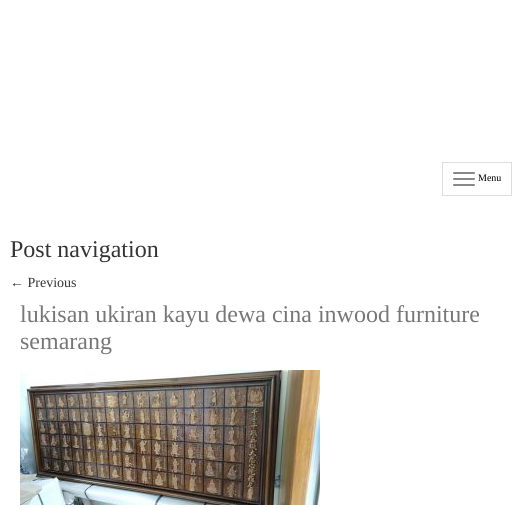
#include <cairo/cairo.h>
#include <math.h>
#include <stddef.h>

static cairo_t *cr;

static void use_color(int r, int g, int b) {
  cairo_set_source_rgb(cr, r / 255.0, g / 255.0, b / 255.0);
}

static void text(double x, double y, const char *s, const char *family, double size, int italic, int bold, int r, int g, int b) {
  cairo_select_font_face(cr, family, italic ? CAIRO_FONT_SLANT_ITALIC : CAIRO_FONT_SLANT_NORMAL,
    bold ? CAIRO_FONT_WEIGHT_BOLD : CAIRO_FONT_WEIGHT_NORMAL);
  cairo_set_font_size(cr, size);
  use_color(r, g, b);
  cairo_move_to(cr, x, y);
  cairo_show_text(cr, s);
}

static void round_rect(double x, double y, double w, double h, double r) {
  cairo_new_sub_path(cr);
  cairo_arc(cr, x + w - r, y + h - r, r, 0, M_PI / 2);
  cairo_arc(cr, x + r, y + h - r, r, M_PI / 2, M_PI);
  cairo_arc(cr, x + r, y + r, r, M_PI, 1.5 * M_PI);
  cairo_arc(cr, x + w - r, y + r, r, 1.5 * M_PI, 2 * M_PI);
  cairo_close_path(cr);
}

static void picture(const char *path, double x, double y, double w, double h) {
  cairo_surface_t *image = cairo_image_surface_create_from_png(path);
  cairo_save(cr);
  cairo_set_source_surface(cr, image, x, y);
  cairo_rectangle(cr, x, y, w, h);
  cairo_fill(cr);
  cairo_restore(cr);
  cairo_surface_destroy(image);
}

static void draw(void) {
  use_color(255, 255, 255);
  cairo_paint(cr);
  cairo_rectangle(cr, 442.5, 162.5, 69, 33);
  use_color(221, 221, 221);
  cairo_set_line_width(cr, 1);
  cairo_stroke(cr);
  use_color(136, 136, 136);
  round_rect(453, 172, 22, 2, 1);
  cairo_fill(cr);
  round_rect(453, 178, 22, 2, 1);
  cairo_fill(cr);
  round_rect(453, 184, 22, 2, 1);
  cairo_fill(cr);
  picture("img_01.png", 20, 370, 300, 135);
  text(478, 181, "Menu", "Liberation Serif", 10, 0, 0, 0, 0, 0);
  text(10, 257, "Post navigation", "Liberation Serif", 24, 0, 0, 52, 52, 52);
  text(10, 287, "← Previous", "Liberation Serif", 14, 0, 0, 52, 52, 52);
  text(20, 322, "lukisan ukiran kayu dewa cina inwood furniture", "Liberation Serif", 24, 0, 0, 119, 119, 119);
  text(20, 349, "semarang", "Liberation Serif", 24, 0, 0, 119, 119, 119);
}

int main(void) {
  cairo_surface_t *surface = cairo_image_surface_create(CAIRO_FORMAT_RGB24, 515, 508);
  cr = cairo_create(surface);
  cairo_font_options_t *options = cairo_font_options_create();
  cairo_font_options_set_hint_metrics(options, CAIRO_HINT_METRICS_OFF);
  cairo_font_options_set_hint_style(options, CAIRO_HINT_STYLE_NONE);
  cairo_set_font_options(cr, options);
  cairo_set_miter_limit(cr, 4);
  draw();
  cairo_surface_write_to_png(surface, "out.png");
  cairo_font_options_destroy(options);
  cairo_destroy(cr);
  cairo_surface_destroy(surface);
  return 0;
}
